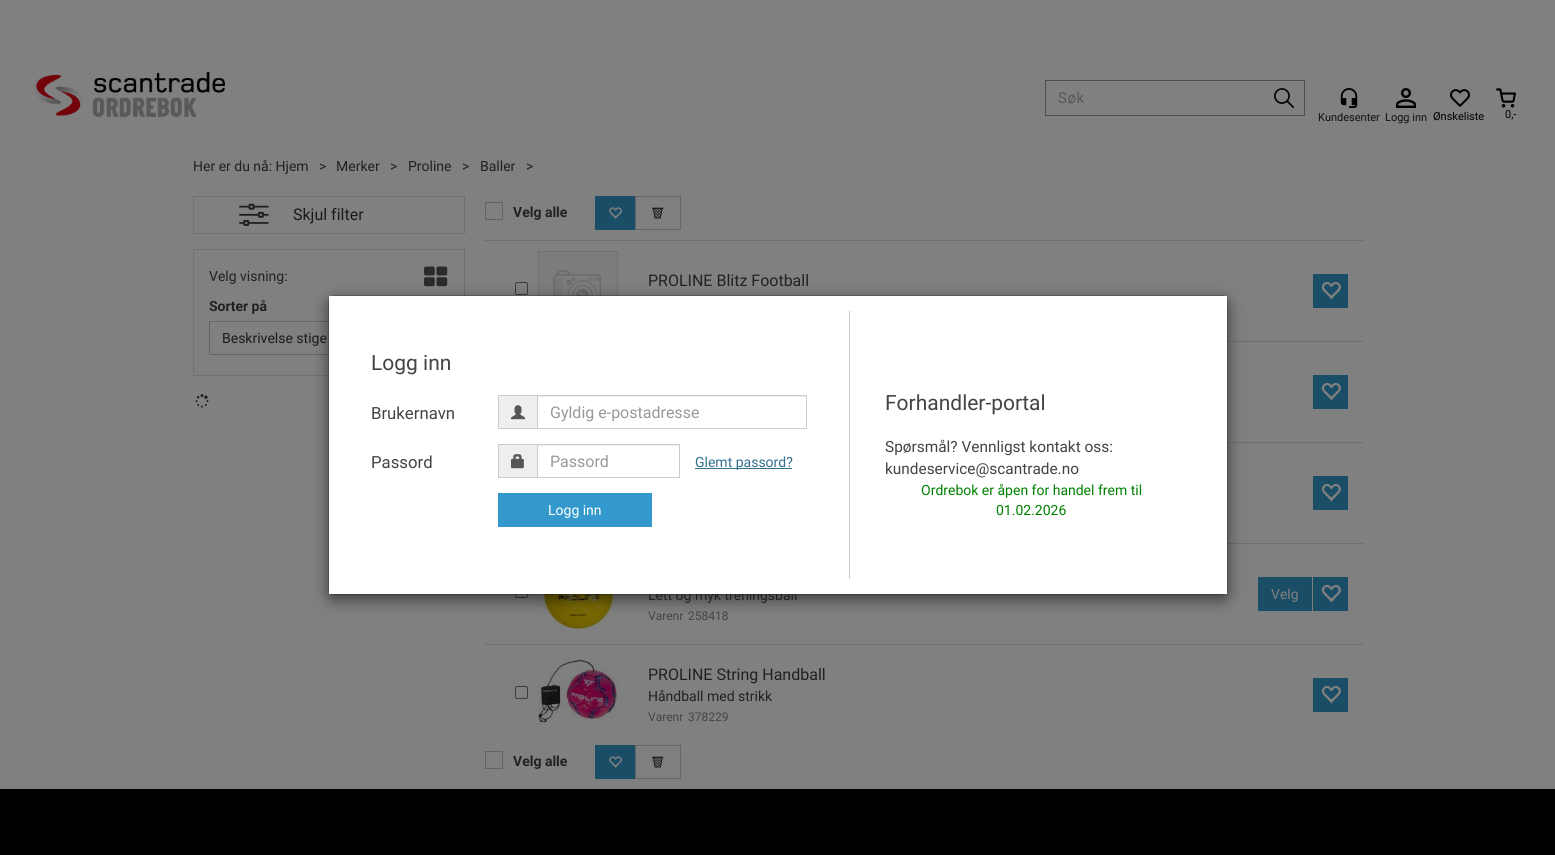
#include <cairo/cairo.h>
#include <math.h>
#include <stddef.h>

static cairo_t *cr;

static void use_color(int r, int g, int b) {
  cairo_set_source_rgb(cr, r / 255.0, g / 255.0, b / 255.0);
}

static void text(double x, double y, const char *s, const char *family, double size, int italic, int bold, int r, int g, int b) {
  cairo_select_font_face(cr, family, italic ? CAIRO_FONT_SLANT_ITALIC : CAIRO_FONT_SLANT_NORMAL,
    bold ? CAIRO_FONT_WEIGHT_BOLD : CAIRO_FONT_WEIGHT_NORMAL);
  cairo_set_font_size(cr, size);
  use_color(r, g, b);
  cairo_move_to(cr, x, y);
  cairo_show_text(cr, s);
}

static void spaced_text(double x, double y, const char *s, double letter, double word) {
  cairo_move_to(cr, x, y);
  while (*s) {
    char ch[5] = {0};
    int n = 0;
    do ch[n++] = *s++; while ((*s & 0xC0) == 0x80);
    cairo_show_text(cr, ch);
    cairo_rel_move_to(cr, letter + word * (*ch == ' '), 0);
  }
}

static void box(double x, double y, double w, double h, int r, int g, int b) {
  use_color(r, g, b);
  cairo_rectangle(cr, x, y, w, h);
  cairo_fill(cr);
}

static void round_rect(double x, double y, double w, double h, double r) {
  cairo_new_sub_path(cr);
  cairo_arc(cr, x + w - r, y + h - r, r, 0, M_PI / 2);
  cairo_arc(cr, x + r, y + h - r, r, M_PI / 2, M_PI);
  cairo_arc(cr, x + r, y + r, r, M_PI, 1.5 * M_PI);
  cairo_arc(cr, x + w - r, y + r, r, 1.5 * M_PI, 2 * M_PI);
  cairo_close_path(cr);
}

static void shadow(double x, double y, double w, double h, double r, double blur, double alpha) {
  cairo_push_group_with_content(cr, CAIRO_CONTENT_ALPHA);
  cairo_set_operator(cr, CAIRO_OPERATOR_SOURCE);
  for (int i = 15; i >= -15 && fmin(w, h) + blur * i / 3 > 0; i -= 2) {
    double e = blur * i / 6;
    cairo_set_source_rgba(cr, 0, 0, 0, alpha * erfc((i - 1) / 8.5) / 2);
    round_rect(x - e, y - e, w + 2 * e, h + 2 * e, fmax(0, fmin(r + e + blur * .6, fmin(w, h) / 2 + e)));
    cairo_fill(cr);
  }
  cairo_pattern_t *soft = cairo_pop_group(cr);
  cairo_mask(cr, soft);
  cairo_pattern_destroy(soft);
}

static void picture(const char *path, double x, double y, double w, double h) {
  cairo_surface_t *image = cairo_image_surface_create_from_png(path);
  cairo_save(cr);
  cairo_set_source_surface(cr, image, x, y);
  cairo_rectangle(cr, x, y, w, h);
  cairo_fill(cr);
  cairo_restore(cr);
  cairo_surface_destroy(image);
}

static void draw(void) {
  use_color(128, 128, 128);
  cairo_paint(cr);
  picture("img_01.png", 34, 72, 191, 46);
  cairo_rectangle(cr, 1045.5, 80.5, 259, 35);
  use_color(78, 78, 78);
  cairo_set_line_width(cr, 1);
  cairo_stroke(cr);
  picture("img_02.png", 1274, 88, 20, 20);
  picture("img_03.png", 1340, 88, 18, 20);
  picture("img_04.png", 1396, 88, 20, 20);
  picture("img_05.png", 1450, 89, 20, 18);
  picture("img_06.png", 1496, 88, 20, 20);
  box(0, 145, 1555, 1, 123, 123, 123);
  picture("img_07.png", 239, 203, 30, 23);
  cairo_rectangle(cr, 193.5, 196.5, 271, 37);
  use_color(113, 113, 113);
  cairo_stroke(cr);
  cairo_rectangle(cr, 193.5, 249.5, 271, 126);
  cairo_stroke(cr);
  picture("img_08.png", 424, 266, 24, 21);
  cairo_rectangle(cr, 209.5, 321.5, 172, 33);
  use_color(102, 102, 102);
  cairo_stroke(cr);
  picture("img_09.png", 195, 394, 14, 14);
  cairo_rectangle(cr, 485.5, 202.5, 17, 17);
  use_color(99, 99, 99);
  cairo_stroke(cr);
  box(595, 196, 40, 34, 26, 77, 102);
  picture("img_10.png", 609, 207, 13, 12);
  cairo_rectangle(cr, 635.5, 196.5, 45, 33);
  use_color(102, 102, 102);
  cairo_stroke(cr);
  picture("img_11.png", 652, 207, 12, 12);
  box(485, 240, 878, 1, 111, 111, 111);
  round_rect(515.5, 282.5, 12, 12, 1.5);
  use_color(59, 59, 59);
  cairo_stroke(cr);
  picture("img_12.png", 538, 251, 80, 45);
  box(1313, 274, 35, 34, 26, 77, 102);
  picture("img_13.png", 1321, 281, 20, 19);
  box(1227, 341, 136, 1, 111, 111, 111);
  box(1313, 375, 35, 34, 26, 77, 102);
  picture("img_13.png", 1321, 382, 20, 19);
  box(1227, 442, 136, 1, 111, 111, 111);
  box(1313, 476, 35, 34, 26, 77, 102);
  picture("img_13.png", 1321, 483, 20, 19);
  box(1227, 543, 136, 1, 111, 111, 111);
  round_rect(515.5, 585.5, 12, 12, 1.5);
  use_color(59, 59, 59);
  cairo_stroke(cr);
  picture("img_14.png", 538, 594, 78, 36);
  box(1258, 577, 54, 34, 26, 77, 102);
  box(1313, 577, 35, 34, 26, 77, 102);
  picture("img_13.png", 1321, 584, 20, 19);
  box(485, 644, 878, 1, 111, 111, 111);
  round_rect(515.5, 686.5, 12, 12, 1.5);
  use_color(59, 59, 59);
  cairo_stroke(cr);
  picture("img_15.png", 538, 659, 80, 65);
  box(1313, 678, 35, 34, 26, 77, 102);
  picture("img_13.png", 1321, 685, 20, 19);
  cairo_rectangle(cr, 485.5, 751.5, 17, 17);
  use_color(99, 99, 99);
  cairo_stroke(cr);
  box(595, 745, 40, 34, 26, 77, 102);
  picture("img_10.png", 609, 756, 13, 12);
  cairo_rectangle(cr, 635.5, 745.5, 45, 33);
  use_color(102, 102, 102);
  cairo_stroke(cr);
  picture("img_11.png", 652, 756, 12, 12);
  box(0, 789, 1555, 66, 0, 0, 0);
  use_color(0, 0, 0);
  shadow(328, 300, 900, 300, 6, 7.5, 0.5);
  cairo_select_font_face(cr, "Roboto", CAIRO_FONT_SLANT_NORMAL, CAIRO_FONT_WEIGHT_NORMAL);
  cairo_set_font_size(cr, 15);
  use_color(88, 88, 88);
  spaced_text(1058, 103, "Søk", 0.5, 0);
  text(1318, 121, "Kundesenter", "Roboto", 11, 0, 0, 17, 17, 17);
  text(1385, 121, "Logg inn", "Roboto", 11, 0, 0, 17, 17, 17);
  text(1433, 120, "Ønskeliste", "Roboto", 11, 0, 0, 0, 0, 0);
  text(1505, 118, "0,-", "Roboto", 11, 0, 0, 0, 0, 0);
  text(193, 171, "Her er du nå: Hjem", "Roboto", 14, 0, 0, 34, 33, 34);
  text(319, 171, ">", "Roboto", 14, 0, 0, 34, 33, 34);
  text(336, 171, "Merker", "Roboto", 14, 0, 0, 34, 33, 34);
  text(390, 171, ">", "Roboto", 14, 0, 0, 34, 33, 34);
  text(408, 171, "Proline", "Roboto", 14, 0, 0, 34, 33, 34);
  text(462, 171, ">", "Roboto", 14, 0, 0, 34, 33, 34);
  text(480, 171, "Baller", "Roboto", 14, 0, 0, 34, 33, 34);
  text(526, 171, ">", "Roboto", 14, 0, 0, 34, 33, 34);
  text(293, 220, "Skjul filter", "Roboto", 16, 0, 0, 26, 26, 26);
  text(209, 281, "Velg visning:", "Roboto", 14, 0, 0, 34, 33, 34);
  text(209, 311, "Sorter på", "Roboto", 14, 0, 1, 34, 33, 34);
  text(222, 343, "Beskrivelse stige", "Roboto", 14, 0, 0, 26, 26, 26);
  text(513, 217, "Velg alle", "Roboto", 14, 0, 1, 34, 33, 34);
  text(648, 286, "PROLINE Blitz Football", "Roboto", 16, 0, 0, 34, 33, 34);
  text(648, 600, "Lett og myk treningsball", "Roboto", 14, 0, 0, 34, 33, 34);
  text(648, 620, "Varenr", "Roboto", 12, 0, 0, 68, 68, 68);
  text(688, 620, "258418", "Roboto", 12, 0, 0, 68, 68, 68);
  text(1271, 599, "Velg", "Roboto", 14, 0, 0, 128, 128, 128);
  text(648, 680, "PROLINE String Handball", "Roboto", 16, 0, 0, 34, 33, 34);
  text(648, 701, "Håndball med strikk", "Roboto", 14, 0, 0, 34, 33, 34);
  text(648, 721, "Varenr", "Roboto", 12, 0, 0, 68, 68, 68);
  text(688, 721, "378229", "Roboto", 12, 0, 0, 68, 68, 68);
  text(513, 766, "Velg alle", "Roboto", 14, 0, 1, 34, 33, 34);
  round_rect(328.5, 295.5, 899, 299, 5.5);
  cairo_set_source_rgba(cr, 0, 0, 0, 0.2);
  cairo_stroke(cr);
  box(329, 296, 898, 298, 255, 255, 255);
  box(849, 311, 1, 268, 204, 204, 204);
  text(371, 370, "Logg inn", "Roboto", 21, 0, 0, 68, 68, 68);
  text(371, 419, "Brukernavn", "Roboto", 16.75, 0, 0, 68, 68, 68);
  box(499, 396, 38, 32, 238, 238, 238);
  box(498, 395, 39, 1, 204, 204, 204);
  box(498, 428, 39, 1, 204, 204, 204);
  box(498, 395, 1, 34, 204, 204, 204);
  picture("img_16.png", 511, 405, 14, 15);
  box(538, 396, 268, 1, 236, 236, 236);
  cairo_rectangle(cr, 537.5, 395.5, 269, 33);
  use_color(204, 204, 204);
  cairo_stroke(cr);
  text(550, 418, "Gyldig e-postadresse", "Roboto", 16, 0, 0, 153, 153, 153);
  text(371, 468, "Passord", "Roboto", 16.75, 0, 0, 68, 68, 68);
  box(499, 445, 38, 32, 238, 238, 238);
  box(498, 444, 39, 1, 204, 204, 204);
  box(498, 477, 39, 1, 204, 204, 204);
  box(498, 444, 1, 34, 204, 204, 204);
  picture("img_17.png", 511, 454, 13, 15);
  box(538, 445, 141, 1, 236, 236, 236);
  cairo_rectangle(cr, 537.5, 444.5, 142, 33);
  use_color(204, 204, 204);
  cairo_stroke(cr);
  text(550, 467, "Passord", "Roboto", 16, 0, 0, 153, 153, 153);
  box(695, 468, 97, 1, 49, 112, 143);
  text(695, 467, "Glemt passord?", "Roboto", 14, 0, 0, 49, 112, 143);
  box(498, 493, 154, 34, 51, 153, 204);
  text(548, 515, "Logg inn", "Roboto", 14, 0, 0, 255, 255, 255);
  text(885, 410, "Forhandler-portal", "Roboto", 21, 0, 0, 68, 68, 68);
  text(885, 452, "Spørsmål? Vennligst kontakt oss:", "Roboto", 15.4, 0, 0, 68, 68, 68);
  text(885, 474, "kundeservice@scantrade.no", "Roboto", 15.4, 0, 0, 68, 68, 68);
  text(921, 495, "Ordrebok er åpen for handel frem til", "Roboto", 14, 0, 0, 0, 128, 0);
  text(996, 515, "01.02.2026", "Roboto", 14, 0, 0, 0, 128, 0);
}

int main(void) {
  cairo_surface_t *surface = cairo_image_surface_create(CAIRO_FORMAT_RGB24, 1555, 855);
  cr = cairo_create(surface);
  cairo_font_options_t *options = cairo_font_options_create();
  cairo_font_options_set_hint_metrics(options, CAIRO_HINT_METRICS_OFF);
  cairo_font_options_set_hint_style(options, CAIRO_HINT_STYLE_NONE);
  cairo_set_font_options(cr, options);
  cairo_set_miter_limit(cr, 4);
  draw();
  cairo_surface_write_to_png(surface, "out.png");
  cairo_font_options_destroy(options);
  cairo_destroy(cr);
  cairo_surface_destroy(surface);
  return 0;
}
